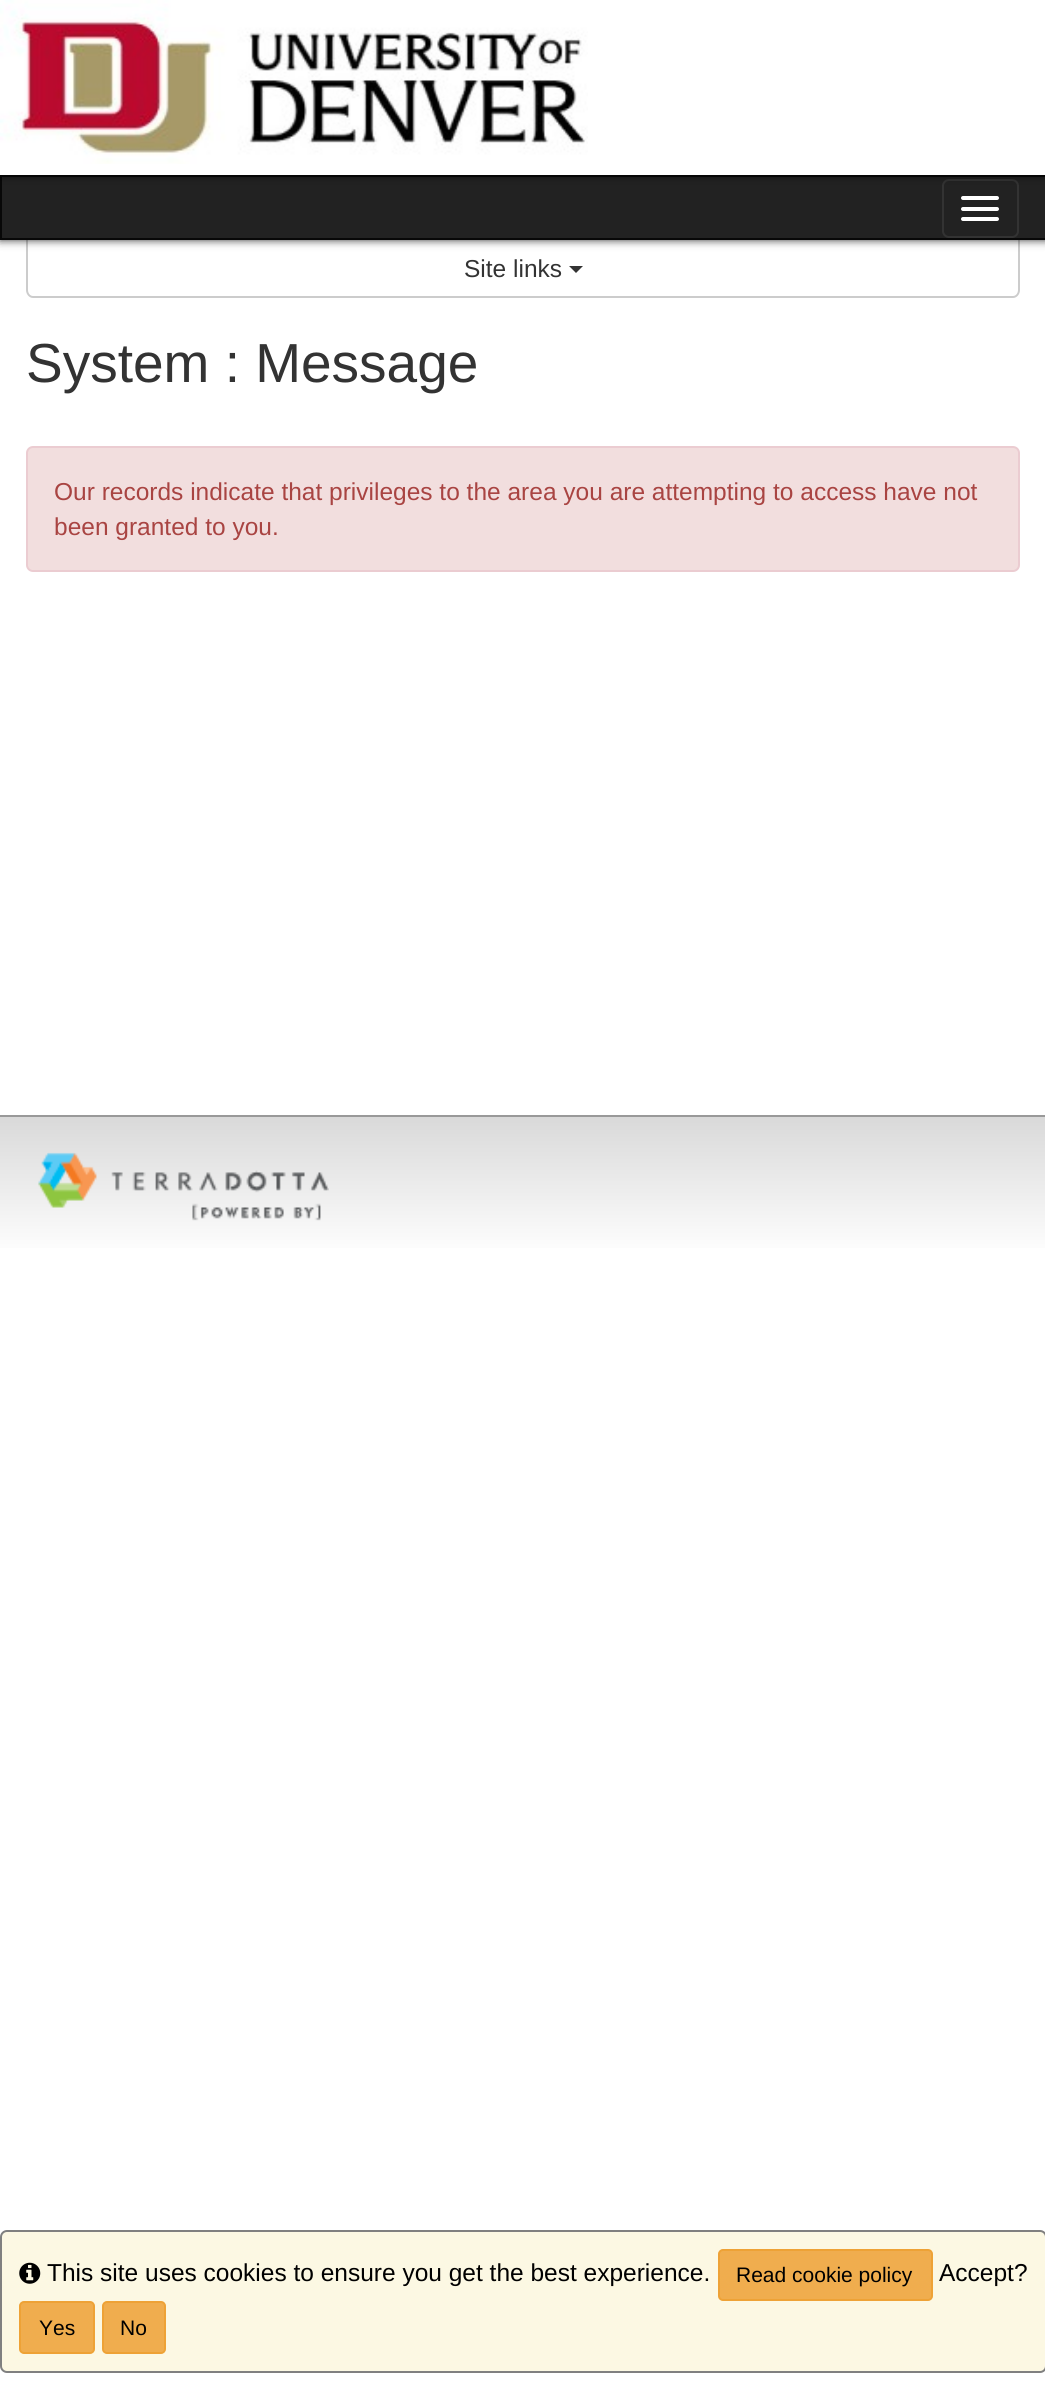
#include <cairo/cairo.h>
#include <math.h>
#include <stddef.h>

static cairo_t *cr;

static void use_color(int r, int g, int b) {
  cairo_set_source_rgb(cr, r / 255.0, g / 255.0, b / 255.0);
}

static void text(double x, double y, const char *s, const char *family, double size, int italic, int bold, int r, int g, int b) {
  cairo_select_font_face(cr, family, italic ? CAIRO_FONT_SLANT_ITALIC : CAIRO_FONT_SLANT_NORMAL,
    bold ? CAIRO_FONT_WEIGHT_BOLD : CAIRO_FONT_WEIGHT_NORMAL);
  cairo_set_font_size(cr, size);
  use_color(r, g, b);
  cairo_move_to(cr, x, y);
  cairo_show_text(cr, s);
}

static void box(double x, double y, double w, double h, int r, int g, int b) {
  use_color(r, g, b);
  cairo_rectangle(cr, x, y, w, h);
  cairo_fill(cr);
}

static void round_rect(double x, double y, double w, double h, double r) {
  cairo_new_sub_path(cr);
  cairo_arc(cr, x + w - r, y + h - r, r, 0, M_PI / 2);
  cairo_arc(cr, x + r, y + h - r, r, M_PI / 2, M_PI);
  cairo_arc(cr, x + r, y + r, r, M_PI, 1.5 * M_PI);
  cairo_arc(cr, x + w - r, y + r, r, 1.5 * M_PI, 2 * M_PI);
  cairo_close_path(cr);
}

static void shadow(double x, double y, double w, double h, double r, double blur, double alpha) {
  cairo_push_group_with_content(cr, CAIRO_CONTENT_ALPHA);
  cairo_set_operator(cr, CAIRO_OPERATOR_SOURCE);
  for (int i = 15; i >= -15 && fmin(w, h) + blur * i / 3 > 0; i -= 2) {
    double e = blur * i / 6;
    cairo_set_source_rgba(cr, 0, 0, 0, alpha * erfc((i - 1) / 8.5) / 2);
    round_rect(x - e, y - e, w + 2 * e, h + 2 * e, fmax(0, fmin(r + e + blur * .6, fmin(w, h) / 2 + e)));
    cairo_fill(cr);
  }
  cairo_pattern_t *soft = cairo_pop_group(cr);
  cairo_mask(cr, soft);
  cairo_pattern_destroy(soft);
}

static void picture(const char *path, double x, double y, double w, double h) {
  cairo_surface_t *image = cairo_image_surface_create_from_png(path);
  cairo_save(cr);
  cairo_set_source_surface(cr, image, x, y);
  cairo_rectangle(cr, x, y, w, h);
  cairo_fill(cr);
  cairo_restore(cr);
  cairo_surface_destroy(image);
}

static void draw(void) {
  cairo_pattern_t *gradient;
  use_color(255, 255, 255);
  cairo_paint(cr);
  use_color(204, 204, 204);
  cairo_set_fill_rule(cr, CAIRO_FILL_RULE_EVEN_ODD);
  cairo_new_path(cr);
  cairo_move_to(cr, 26, 240);
  cairo_line_to(cr, 1020, 240);
  cairo_line_to(cr, 1020, 290);
  cairo_curve_to(cr, 1020, 294, 1017, 298, 1013, 298);
  cairo_line_to(cr, 33, 298);
  cairo_curve_to(cr, 29, 298, 26, 294, 26, 290);
  cairo_close_path(cr);
  cairo_move_to(cr, 28, 240);
  cairo_line_to(cr, 1018, 240);
  cairo_line_to(cr, 1018, 290);
  cairo_curve_to(cr, 1018, 293, 1016, 296, 1013, 296);
  cairo_line_to(cr, 33, 296);
  cairo_curve_to(cr, 30, 296, 28, 293, 28, 290);
  cairo_close_path(cr);
  cairo_fill(cr);
  use_color(0, 0, 0);
  shadow(0, 175, 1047, 65, 0, 4.5, 0.8);
  use_color(34, 34, 34);
  cairo_rectangle(cr, 1, 176, 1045, 63);
  cairo_fill_preserve(cr);
  use_color(8, 8, 8);
  cairo_stroke(cr);
  round_rect(943, 180, 75, 57, 6);
  use_color(51, 51, 51);
  cairo_stroke(cr);
  use_color(0, 0, 0);
  shadow(0, 0, 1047, 175, 0, 4.5, 0.8);
  box(0, 0, 1045, 175, 255, 255, 255);
  picture("img_01.png", 0, 0, 588, 164);
  round_rect(961, 196, 38, 4, 2);
  cairo_fill(cr);
  round_rect(961, 207, 38, 4, 2);
  cairo_fill(cr);
  round_rect(961, 217, 38, 4, 2);
  cairo_fill(cr);
  use_color(51, 51, 51);
  cairo_set_fill_rule(cr, CAIRO_FILL_RULE_WINDING);
  cairo_new_path(cr);
  cairo_move_to(cr, 569, 266);
  cairo_line_to(cr, 583, 266);
  cairo_line_to(cr, 576, 273);
  cairo_close_path(cr);
  cairo_fill(cr);
  use_color(242, 222, 222);
  round_rect(27, 447, 992, 124, 6);
  cairo_fill_preserve(cr);
  use_color(235, 204, 209);
  cairo_stroke(cr);
  gradient = cairo_pattern_create_linear(523, 1292, 523, 1117);
  cairo_pattern_add_color_stop_rgba(gradient, 0.2, 1, 1, 1, 1);
  cairo_pattern_add_color_stop_rgba(gradient, 1, 0.851, 0.851, 0.851, 1);
  cairo_set_source(cr, gradient);
  cairo_pattern_destroy(gradient);
  cairo_rectangle(cr, 0, 1117, 1045, 131);
  cairo_fill(cr);
  box(0, 1115, 1045, 2, 153, 153, 153);
  picture("img_02.png", 38, 1152, 291, 69);
  use_color(252, 248, 227);
  round_rect(1, 2231, 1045, 141, 6);
  cairo_fill_preserve(cr);
  use_color(128, 128, 128);
  cairo_stroke(cr);
  picture("img_03.png", 19, 2262, 22, 22);
  use_color(240, 173, 78);
  round_rect(719, 2250, 213, 50, 4);
  cairo_fill_preserve(cr);
  use_color(238, 162, 54);
  cairo_stroke(cr);
  use_color(240, 173, 78);
  round_rect(20, 2302, 74, 51, 4);
  cairo_fill_preserve(cr);
  use_color(238, 162, 54);
  cairo_stroke(cr);
  use_color(240, 173, 78);
  round_rect(103, 2302, 62, 51, 4);
  cairo_fill_preserve(cr);
  use_color(238, 162, 54);
  cairo_stroke(cr);
  text(464, 277, "Site links", "Liberation Sans", 24.5, 0, 0, 51, 51, 51);
  text(26, 382, "System : Message", "Liberation Sans", 55, 0, 0, 51, 51, 51);
  text(54, 500, "Our records indicate that privileges to the area you are attempting to access have not", "Liberation Sans", 24.5, 0, 0, 169, 68, 66);
  text(54, 535, "been granted to you.", "Liberation Sans", 24.5, 0, 0, 169, 68, 66);
  text(47, 2281, "This site uses cookies to ensure you get the best experience.", "Liberation Sans", 24.5, 0, 0, 0, 0, 0);
  text(736, 2282, "Read cookie policy", "Liberation Sans", 21, 0, 0, 0, 0, 0);
  text(939, 2281, "Accept?", "Liberation Sans", 24.5, 0, 0, 0, 0, 0);
  text(39, 2335, "Yes", "Liberation Sans", 21, 0, 0, 0, 0, 0);
  text(120, 2335, "No", "Liberation Sans", 21, 0, 0, 0, 0, 0);
}

int main(void) {
  cairo_surface_t *surface = cairo_image_surface_create(CAIRO_FORMAT_RGB24, 1045, 2408);
  cr = cairo_create(surface);
  cairo_font_options_t *options = cairo_font_options_create();
  cairo_font_options_set_hint_metrics(options, CAIRO_HINT_METRICS_OFF);
  cairo_font_options_set_hint_style(options, CAIRO_HINT_STYLE_NONE);
  cairo_set_font_options(cr, options);
  cairo_set_miter_limit(cr, 4);
  draw();
  cairo_surface_write_to_png(surface, "out.png");
  cairo_font_options_destroy(options);
  cairo_destroy(cr);
  cairo_surface_destroy(surface);
  return 0;
}
